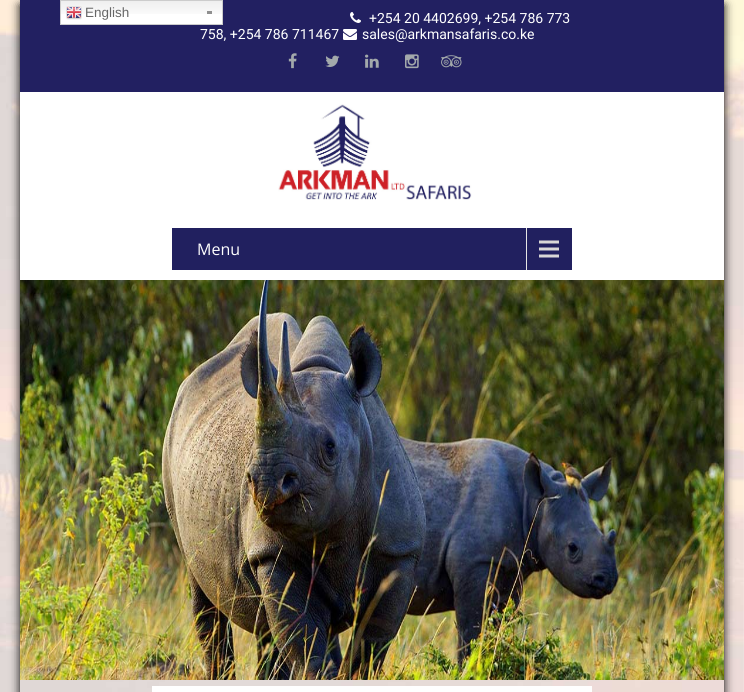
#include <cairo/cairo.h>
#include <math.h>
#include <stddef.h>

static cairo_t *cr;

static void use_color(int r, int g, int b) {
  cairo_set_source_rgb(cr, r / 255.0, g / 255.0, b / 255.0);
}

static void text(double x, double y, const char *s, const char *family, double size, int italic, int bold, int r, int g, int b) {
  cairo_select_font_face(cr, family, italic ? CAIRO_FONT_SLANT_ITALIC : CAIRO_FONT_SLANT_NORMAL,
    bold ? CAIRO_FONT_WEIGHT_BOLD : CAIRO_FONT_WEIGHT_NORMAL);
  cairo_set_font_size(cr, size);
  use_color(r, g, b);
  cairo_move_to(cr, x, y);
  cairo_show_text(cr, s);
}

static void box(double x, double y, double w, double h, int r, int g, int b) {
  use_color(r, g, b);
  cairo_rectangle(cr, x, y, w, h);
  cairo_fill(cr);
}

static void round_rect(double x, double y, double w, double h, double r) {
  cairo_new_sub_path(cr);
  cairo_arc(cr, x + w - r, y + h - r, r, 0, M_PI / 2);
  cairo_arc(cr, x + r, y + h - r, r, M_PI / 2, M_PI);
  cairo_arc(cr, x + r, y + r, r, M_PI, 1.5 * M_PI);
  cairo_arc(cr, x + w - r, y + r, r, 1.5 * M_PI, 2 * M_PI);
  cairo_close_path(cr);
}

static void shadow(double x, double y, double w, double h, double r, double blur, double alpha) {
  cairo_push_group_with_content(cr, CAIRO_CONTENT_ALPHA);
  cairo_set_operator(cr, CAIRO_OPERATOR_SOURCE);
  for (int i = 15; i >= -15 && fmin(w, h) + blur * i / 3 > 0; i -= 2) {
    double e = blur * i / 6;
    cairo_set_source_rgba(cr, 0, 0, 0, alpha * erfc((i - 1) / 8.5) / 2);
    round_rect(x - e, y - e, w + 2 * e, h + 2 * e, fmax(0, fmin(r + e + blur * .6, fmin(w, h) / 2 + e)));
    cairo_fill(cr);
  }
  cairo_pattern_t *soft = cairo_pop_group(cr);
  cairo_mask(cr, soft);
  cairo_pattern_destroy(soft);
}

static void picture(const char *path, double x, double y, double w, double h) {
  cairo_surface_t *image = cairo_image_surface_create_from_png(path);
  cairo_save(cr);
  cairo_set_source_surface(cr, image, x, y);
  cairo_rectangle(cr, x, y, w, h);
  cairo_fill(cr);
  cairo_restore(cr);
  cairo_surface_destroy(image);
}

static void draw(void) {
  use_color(255, 255, 255);
  cairo_paint(cr);
  picture("img_01.png", 0, 0, 744, 692);
  cairo_save(cr);
  cairo_set_fill_rule(cr, CAIRO_FILL_RULE_EVEN_ODD);
  cairo_new_path(cr);
  cairo_move_to(cr, 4, 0);
  cairo_line_to(cr, 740, 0);
  cairo_line_to(cr, 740, 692);
  cairo_line_to(cr, 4, 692);
  cairo_close_path(cr);
  cairo_move_to(cr, 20, 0);
  cairo_line_to(cr, 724, 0);
  cairo_line_to(cr, 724, 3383);
  cairo_line_to(cr, 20, 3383);
  cairo_close_path(cr);
  cairo_clip(cr);
  use_color(0, 0, 0);
  shadow(20, 5, 704, 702, 0, 5, 1);
  cairo_restore(cr);
  box(20, 0, 704, 92, 34, 32, 97);
  box(61, 14, 161, 10, 255, 255, 255);
  picture("img_02.png", 61, 1, 161, 13);
  box(207, 11, 5, 3, 143, 143, 143);
  cairo_rectangle(cr, 60.5, 0.5, 162, 24);
  use_color(204, 204, 204);
  cairo_set_line_width(cr, 1);
  cairo_stroke(cr);
  picture("img_03.png", 66, 6, 16, 14);
  picture("img_04.png", 350, 12, 11, 11);
  picture("img_05.png", 343, 29, 14, 11);
  picture("img_06.png", 288, 53, 9, 16);
  picture("img_07.png", 325, 55, 15, 12);
  picture("img_08.png", 365, 54, 14, 14);
  picture("img_09.png", 405, 54, 14, 15);
  picture("img_10.png", 441, 55, 21, 13);
  box(20, 92, 704, 188, 255, 255, 255);
  picture("img_11.png", 278, 104, 194, 96);
  box(172, 228, 400, 42, 33, 32, 95);
  picture("img_12.png", 526, 228, 33, 42);
  picture("img_13.png", 20, 280, 704, 400);
  box(152, 686, 440, 6, 255, 255, 255);
  text(85, 17, "English", "Liberation Sans", 13.5, 0, 0, 102, 102, 102);
  text(369, 23, "+254 20 4402699, +254 786 773", "Roboto", 14, 0, 0, 255, 255, 255);
  text(200, 39, "758, +254 786 711467", "Roboto", 14, 0, 0, 255, 255, 255);
  text(362, 39, "sales@arkmansafaris.co.ke", "Roboto", 14, 0, 0, 255, 255, 255);
  text(197, 255, "Menu", "Open Sans", 16, 0, 0, 255, 255, 255);
}

int main(void) {
  cairo_surface_t *surface = cairo_image_surface_create(CAIRO_FORMAT_RGB24, 744, 692);
  cr = cairo_create(surface);
  cairo_font_options_t *options = cairo_font_options_create();
  cairo_font_options_set_hint_metrics(options, CAIRO_HINT_METRICS_OFF);
  cairo_font_options_set_hint_style(options, CAIRO_HINT_STYLE_NONE);
  cairo_set_font_options(cr, options);
  cairo_set_miter_limit(cr, 4);
  draw();
  cairo_surface_write_to_png(surface, "out.png");
  cairo_font_options_destroy(options);
  cairo_destroy(cr);
  cairo_surface_destroy(surface);
  return 0;
}
